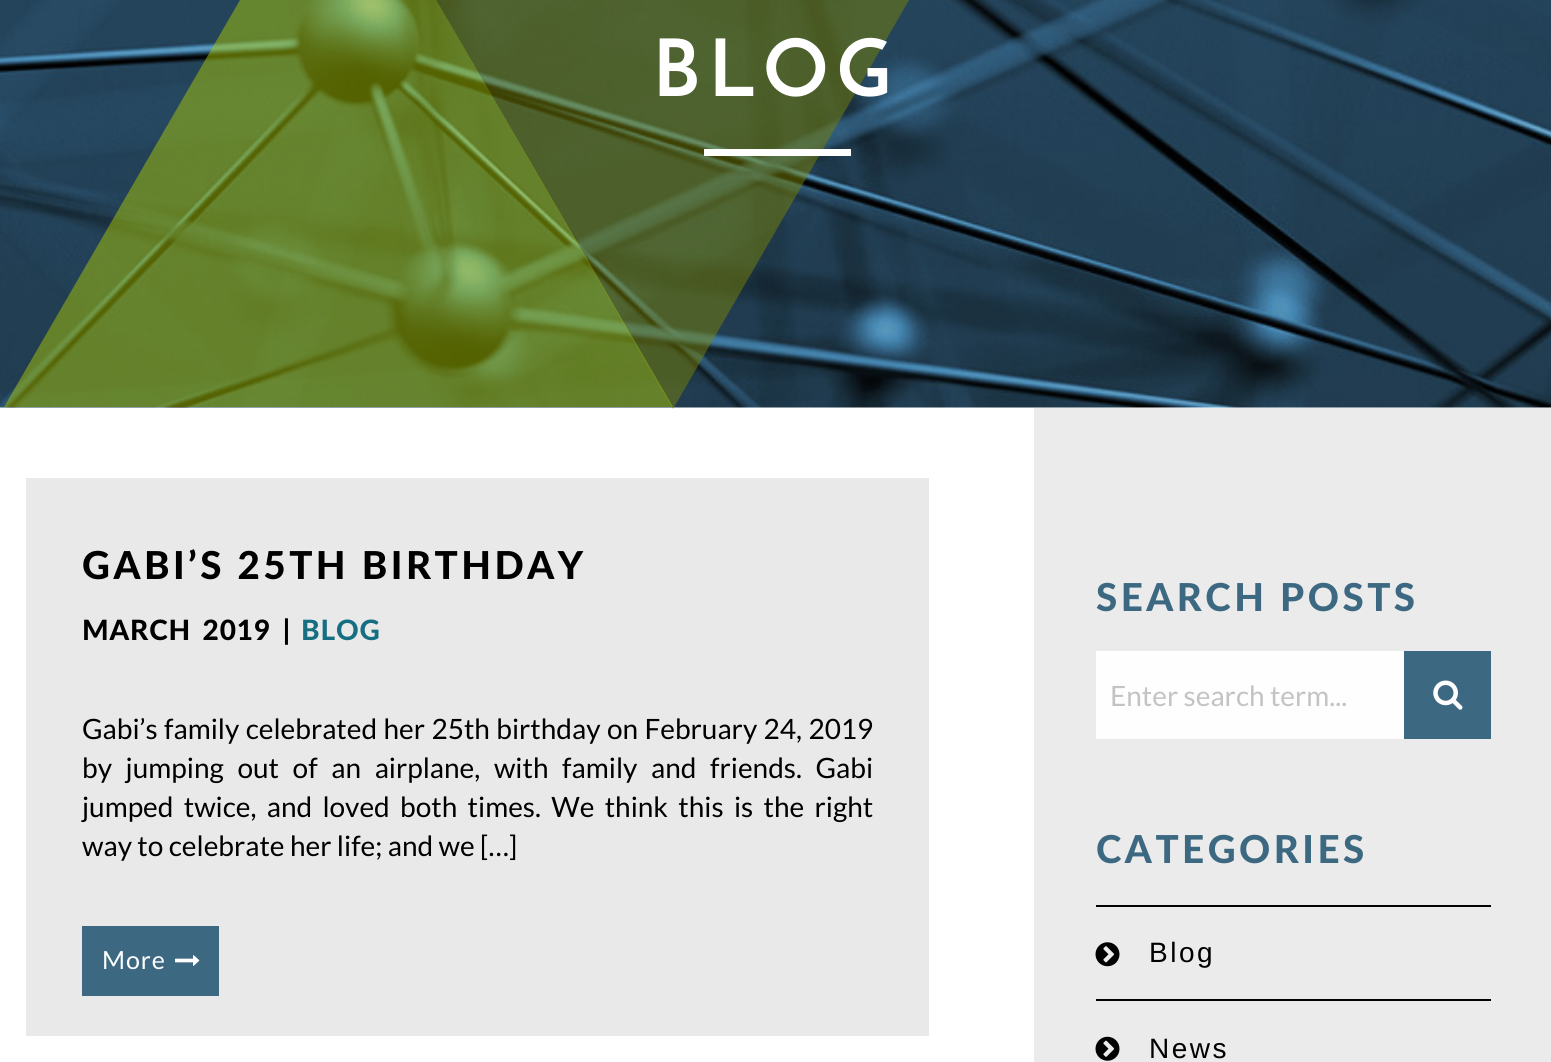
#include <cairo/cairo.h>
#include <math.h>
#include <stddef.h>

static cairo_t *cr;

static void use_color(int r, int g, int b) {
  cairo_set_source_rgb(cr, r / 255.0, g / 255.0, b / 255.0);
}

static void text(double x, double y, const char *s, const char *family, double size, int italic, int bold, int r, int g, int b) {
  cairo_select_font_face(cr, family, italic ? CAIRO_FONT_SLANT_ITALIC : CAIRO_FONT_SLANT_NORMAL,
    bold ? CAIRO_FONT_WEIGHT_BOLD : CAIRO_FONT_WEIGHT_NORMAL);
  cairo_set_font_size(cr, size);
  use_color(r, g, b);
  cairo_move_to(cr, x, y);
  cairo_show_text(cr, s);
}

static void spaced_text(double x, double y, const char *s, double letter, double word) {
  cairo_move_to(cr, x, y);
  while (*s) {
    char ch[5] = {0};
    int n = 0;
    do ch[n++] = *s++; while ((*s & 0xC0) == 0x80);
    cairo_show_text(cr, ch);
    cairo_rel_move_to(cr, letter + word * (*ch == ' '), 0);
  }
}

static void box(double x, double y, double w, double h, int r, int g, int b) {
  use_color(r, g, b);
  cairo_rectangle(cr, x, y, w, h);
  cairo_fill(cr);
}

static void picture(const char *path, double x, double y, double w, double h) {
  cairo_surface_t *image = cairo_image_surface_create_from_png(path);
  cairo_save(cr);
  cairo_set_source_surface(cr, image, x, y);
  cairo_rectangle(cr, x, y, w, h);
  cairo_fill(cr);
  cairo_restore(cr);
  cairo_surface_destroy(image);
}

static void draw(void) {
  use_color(255, 255, 255);
  cairo_paint(cr);
  picture("img_01.png", 0, 0, 1551, 408);
  cairo_set_source_rgba(cr, 0.486, 0.518, 0.008, 0.49);
  cairo_new_path(cr);
  cairo_move_to(cr, 1006, -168);
  cairo_line_to(cr, 673, 409);
  cairo_line_to(cr, 339, -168);
  cairo_close_path(cr);
  cairo_fill(cr);
  cairo_set_source_rgba(cr, 0.671, 0.788, 0.008, 0.49);
  cairo_new_path(cr);
  cairo_move_to(cr, 338, -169);
  cairo_line_to(cr, 673, 407);
  cairo_line_to(cr, 4, 407);
  cairo_close_path(cr);
  cairo_fill(cr);
  box(704, 149, 147, 7, 255, 255, 255);
  box(26, 478, 903, 558, 233, 233, 233);
  box(82, 926, 137, 70, 60, 105, 129);
  picture("img_02.png", 175, 955, 25, 11);
  box(1034, 408, 517, 654, 235, 235, 235);
  box(1096, 651, 308, 88, 254, 254, 254);
  box(1404, 651, 87, 88, 60, 105, 129);
  picture("img_03.png", 1433, 680, 30, 30);
  box(1096, 905, 395, 2, 2, 2, 2);
  box(1096, 999, 395, 2, 2, 2, 2);
  picture("img_04.png", 1095, 942, 25, 25);
  picture("img_05.png", 1095, 1036, 25, 25);
  cairo_select_font_face(cr, "Josefin Sans", CAIRO_FONT_SLANT_NORMAL, CAIRO_FONT_WEIGHT_BOLD);
  cairo_set_font_size(cr, 79);
  use_color(255, 255, 255);
  spaced_text(653, 96, "BLOG", 9, 0);
  cairo_select_font_face(cr, "Lato Black", CAIRO_FONT_SLANT_NORMAL, CAIRO_FONT_WEIGHT_NORMAL);
  cairo_set_font_size(cr, 38.5);
  use_color(0, 0, 0);
  spaced_text(82, 579, "GABI’S 25TH BIRTHDAY", 3.5, 0);
  cairo_set_font_size(cr, 28);
  spaced_text(82, 640, "MARCH 2019 |", 0.9, 4);
  use_color(22, 110, 131);
  spaced_text(301, 640, "BLOG", 0.9, 0);
  cairo_select_font_face(cr, "Lato", CAIRO_FONT_SLANT_NORMAL, CAIRO_FONT_WEIGHT_NORMAL);
  use_color(0, 0, 0);
  spaced_text(82, 739, "Gabi’s family celebrated her 25th birthday on February 24, 2019", 0, 1);
  spaced_text(82, 778, "by jumping out of an airplane, with family and friends. Gabi", 0, 8.25);
  spaced_text(82, 817, "jumped twice, and loved both times. We think this is the right", 0, 4.9);
  text(82, 856, "way to celebrate her life; and we […]", "Lato", 28, 0, 0, 0, 0, 0);
  cairo_set_font_size(cr, 25);
  use_color(255, 255, 255);
  spaced_text(102, 969, "More", 0.9, 0);
  cairo_select_font_face(cr, "Lato Black", CAIRO_FONT_SLANT_NORMAL, CAIRO_FONT_WEIGHT_NORMAL);
  cairo_set_font_size(cr, 38.5);
  use_color(60, 105, 129);
  spaced_text(1096, 611, "SEARCH POSTS", 3.5, 0);
  text(1110, 706, "Enter search term...", "Lato", 28, 0, 0, 195, 195, 195);
  cairo_select_font_face(cr, "Lato Black", CAIRO_FONT_SLANT_NORMAL, CAIRO_FONT_WEIGHT_NORMAL);
  cairo_set_font_size(cr, 38.5);
  use_color(60, 105, 129);
  spaced_text(1096, 863, "CATEGORIES", 3.5, 0);
  cairo_select_font_face(cr, "Liberation Sans", CAIRO_FONT_SLANT_NORMAL, CAIRO_FONT_WEIGHT_NORMAL);
  cairo_set_font_size(cr, 28);
  use_color(0, 0, 0);
  spaced_text(1149, 962, "Blog", 2.5, 0);
  spaced_text(1149, 1058, "News", 2.5, 0);
}

int main(void) {
  cairo_surface_t *surface = cairo_image_surface_create(CAIRO_FORMAT_RGB24, 1551, 1062);
  cr = cairo_create(surface);
  cairo_font_options_t *options = cairo_font_options_create();
  cairo_font_options_set_hint_metrics(options, CAIRO_HINT_METRICS_OFF);
  cairo_font_options_set_hint_style(options, CAIRO_HINT_STYLE_NONE);
  cairo_set_font_options(cr, options);
  cairo_set_miter_limit(cr, 4);
  draw();
  cairo_surface_write_to_png(surface, "out.png");
  cairo_font_options_destroy(options);
  cairo_destroy(cr);
  cairo_surface_destroy(surface);
  return 0;
}
